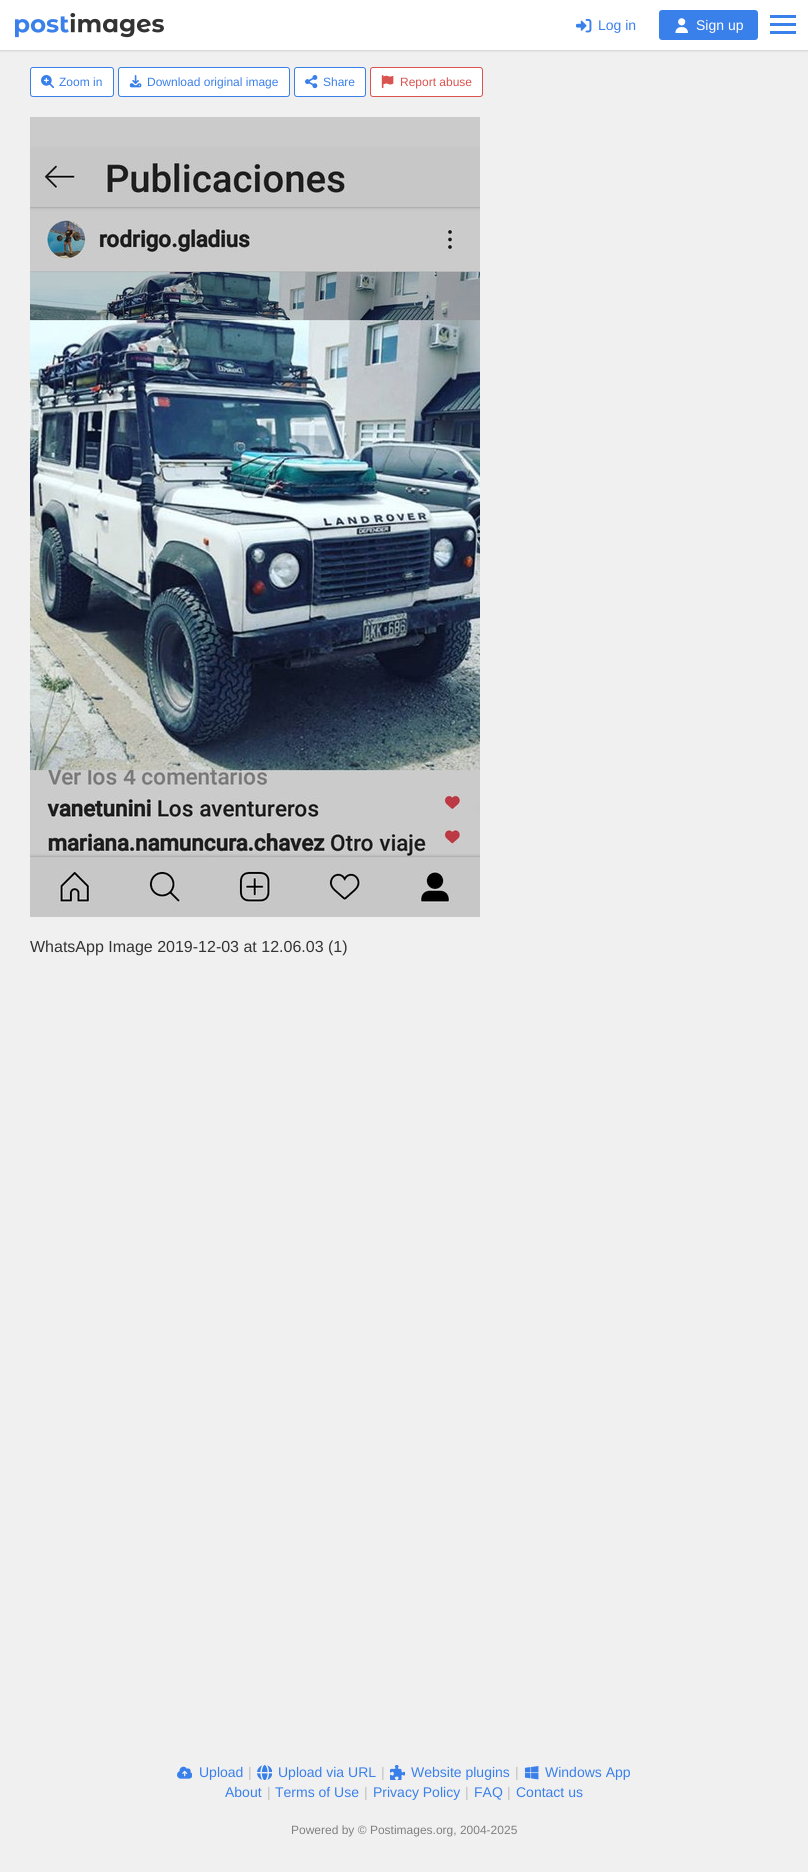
#include <cairo/cairo.h>
#include <math.h>
#include <stddef.h>

static cairo_t *cr;

static void use_color(int r, int g, int b) {
  cairo_set_source_rgb(cr, r / 255.0, g / 255.0, b / 255.0);
}

static void text(double x, double y, const char *s, const char *family, double size, int italic, int bold, int r, int g, int b) {
  cairo_select_font_face(cr, family, italic ? CAIRO_FONT_SLANT_ITALIC : CAIRO_FONT_SLANT_NORMAL,
    bold ? CAIRO_FONT_WEIGHT_BOLD : CAIRO_FONT_WEIGHT_NORMAL);
  cairo_set_font_size(cr, size);
  use_color(r, g, b);
  cairo_move_to(cr, x, y);
  cairo_show_text(cr, s);
}

static void box(double x, double y, double w, double h, int r, int g, int b) {
  use_color(r, g, b);
  cairo_rectangle(cr, x, y, w, h);
  cairo_fill(cr);
}

static void round_rect(double x, double y, double w, double h, double r) {
  cairo_new_sub_path(cr);
  cairo_arc(cr, x + w - r, y + h - r, r, 0, M_PI / 2);
  cairo_arc(cr, x + r, y + h - r, r, M_PI / 2, M_PI);
  cairo_arc(cr, x + r, y + r, r, M_PI, 1.5 * M_PI);
  cairo_arc(cr, x + w - r, y + r, r, 1.5 * M_PI, 2 * M_PI);
  cairo_close_path(cr);
}

static void shadow(double x, double y, double w, double h, double r, double blur, double alpha) {
  cairo_push_group_with_content(cr, CAIRO_CONTENT_ALPHA);
  cairo_set_operator(cr, CAIRO_OPERATOR_SOURCE);
  for (int i = 15; i >= -15 && fmin(w, h) + blur * i / 3 > 0; i -= 2) {
    double e = blur * i / 6;
    cairo_set_source_rgba(cr, 0, 0, 0, alpha * erfc((i - 1) / 8.5) / 2);
    round_rect(x - e, y - e, w + 2 * e, h + 2 * e, fmax(0, fmin(r + e + blur * .6, fmin(w, h) / 2 + e)));
    cairo_fill(cr);
  }
  cairo_pattern_t *soft = cairo_pop_group(cr);
  cairo_mask(cr, soft);
  cairo_pattern_destroy(soft);
}

static void picture(const char *path, double x, double y, double w, double h) {
  cairo_surface_t *image = cairo_image_surface_create_from_png(path);
  cairo_save(cr);
  cairo_set_source_surface(cr, image, x, y);
  cairo_rectangle(cr, x, y, w, h);
  cairo_fill(cr);
  cairo_restore(cr);
  cairo_surface_destroy(image);
}

static void draw(void) {
  use_color(240, 240, 240);
  cairo_paint(cr);
  use_color(0, 0, 0);
  shadow(0, 0, 808, 50, 0, 1.5, 0.25);
  box(0, 0, 808, 50, 255, 255, 255);
  picture("img_01.png", 15, 13, 149, 25);
  picture("img_02.png", 576, 18, 16, 15);
  use_color(58, 128, 234);
  round_rect(659, 10, 99, 30, 3);
  cairo_fill(cr);
  picture("img_03.png", 675, 18, 13, 15);
  box(770, 15, 26, 3, 58, 128, 234);
  box(770, 23, 26, 3, 58, 128, 234);
  box(770, 31, 26, 3, 58, 128, 234);
  use_color(255, 255, 255);
  round_rect(30.5, 67.5, 83, 29, 2.5);
  cairo_fill_preserve(cr);
  use_color(58, 128, 234);
  cairo_set_line_width(cr, 1);
  cairo_stroke(cr);
  picture("img_04.png", 41, 75, 13, 14);
  use_color(255, 255, 255);
  round_rect(118.5, 67.5, 171, 29, 2.5);
  cairo_fill_preserve(cr);
  use_color(58, 128, 234);
  cairo_stroke(cr);
  picture("img_05.png", 129, 75, 13, 13);
  use_color(255, 255, 255);
  round_rect(294.5, 67.5, 71, 29, 2.5);
  cairo_fill_preserve(cr);
  use_color(58, 128, 234);
  cairo_stroke(cr);
  picture("img_06.png", 305, 75, 13, 14);
  use_color(255, 255, 255);
  round_rect(370.5, 67.5, 112, 29, 2.5);
  cairo_fill_preserve(cr);
  use_color(217, 83, 79);
  cairo_stroke(cr);
  picture("img_07.png", 381, 75, 13, 14);
  picture("img_08.png", 30, 117, 450, 800);
  picture("img_09.png", 177, 1766, 15, 13);
  picture("img_10.png", 257, 1765, 15, 15);
  picture("img_11.png", 390, 1765, 15, 15);
  picture("img_12.png", 524, 1766, 15, 14);
  text(598, 30, "Log in", "Liberation Sans", 14, 0, 0, 58, 128, 234);
  text(696, 30, "Sign up", "Liberation Sans", 14, 0, 0, 255, 255, 255);
  text(59, 86, "Zoom in", "Liberation Sans", 12, 0, 0, 58, 128, 234);
  text(147, 86, "Download original image", "Liberation Sans", 12, 0, 0, 58, 128, 234);
  text(323, 86, "Share", "Liberation Sans", 12, 0, 0, 58, 128, 234);
  text(400, 86, "Report abuse", "Liberation Sans", 12, 0, 0, 217, 83, 79);
  text(30, 952, "WhatsApp Image 2019-12-03 at 12.06.03 (1)", "Liberation Sans", 16, 0, 0, 51, 51, 51);
  text(199, 1777, "Upload", "Liberation Sans", 14, 0, 0, 58, 128, 234);
  text(248, 1777, "|", "Liberation Sans", 14, 0, 0, 192, 192, 192);
  text(278, 1777, "Upload via URL", "Liberation Sans", 14, 0, 0, 58, 128, 234);
  text(381, 1777, "|", "Liberation Sans", 14, 0, 0, 192, 192, 192);
  text(411, 1777, "Website plugins", "Liberation Sans", 14, 0, 0, 58, 128, 234);
  text(515, 1777, "|", "Liberation Sans", 14, 0, 0, 192, 192, 192);
  text(545, 1777, "Windows App", "Liberation Sans", 14, 0, 0, 58, 128, 234);
  text(225, 1797, "About", "Liberation Sans", 14, 0, 0, 58, 128, 234);
  text(267, 1797, "|", "Liberation Sans", 14, 0, 0, 192, 192, 192);
  text(275, 1797, "Terms of Use", "Liberation Sans", 14, 0, 0, 58, 128, 234);
  text(364, 1797, "|", "Liberation Sans", 14, 0, 0, 192, 192, 192);
  text(373, 1797, "Privacy Policy", "Liberation Sans", 14, 0, 0, 58, 128, 234);
  text(465, 1797, "|", "Liberation Sans", 14, 0, 0, 192, 192, 192);
  text(474, 1797, "FAQ", "Liberation Sans", 14, 0, 0, 58, 128, 234);
  text(507, 1797, "|", "Liberation Sans", 14, 0, 0, 192, 192, 192);
  text(516, 1797, "Contact us", "Liberation Sans", 14, 0, 0, 58, 128, 234);
  text(291, 1834, "Powered by © Postimages.org, 2004-2025", "Liberation Sans", 12, 0, 0, 128, 128, 128);
}

int main(void) {
  cairo_surface_t *surface = cairo_image_surface_create(CAIRO_FORMAT_RGB24, 808, 1872);
  cr = cairo_create(surface);
  cairo_font_options_t *options = cairo_font_options_create();
  cairo_font_options_set_hint_metrics(options, CAIRO_HINT_METRICS_OFF);
  cairo_font_options_set_hint_style(options, CAIRO_HINT_STYLE_NONE);
  cairo_set_font_options(cr, options);
  cairo_set_miter_limit(cr, 4);
  draw();
  cairo_surface_write_to_png(surface, "out.png");
  cairo_font_options_destroy(options);
  cairo_destroy(cr);
  cairo_surface_destroy(surface);
  return 0;
}
